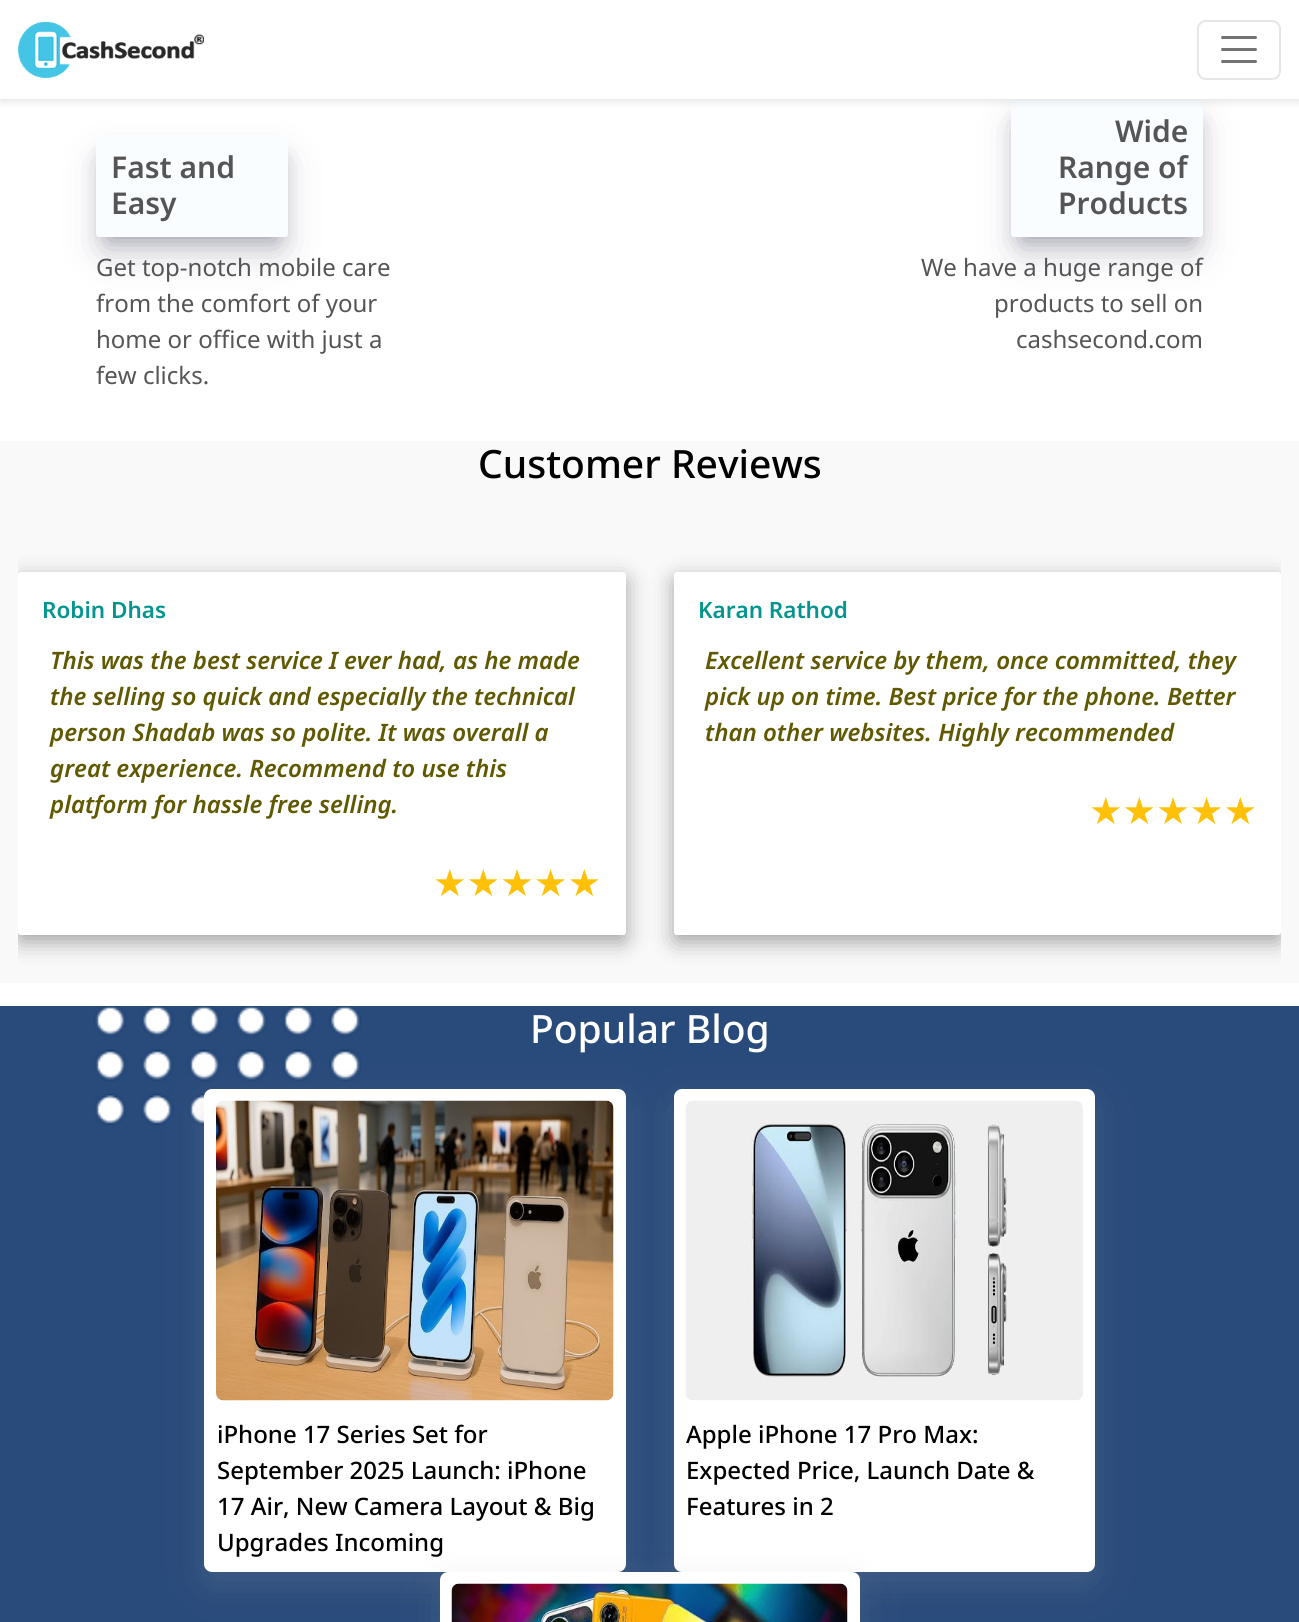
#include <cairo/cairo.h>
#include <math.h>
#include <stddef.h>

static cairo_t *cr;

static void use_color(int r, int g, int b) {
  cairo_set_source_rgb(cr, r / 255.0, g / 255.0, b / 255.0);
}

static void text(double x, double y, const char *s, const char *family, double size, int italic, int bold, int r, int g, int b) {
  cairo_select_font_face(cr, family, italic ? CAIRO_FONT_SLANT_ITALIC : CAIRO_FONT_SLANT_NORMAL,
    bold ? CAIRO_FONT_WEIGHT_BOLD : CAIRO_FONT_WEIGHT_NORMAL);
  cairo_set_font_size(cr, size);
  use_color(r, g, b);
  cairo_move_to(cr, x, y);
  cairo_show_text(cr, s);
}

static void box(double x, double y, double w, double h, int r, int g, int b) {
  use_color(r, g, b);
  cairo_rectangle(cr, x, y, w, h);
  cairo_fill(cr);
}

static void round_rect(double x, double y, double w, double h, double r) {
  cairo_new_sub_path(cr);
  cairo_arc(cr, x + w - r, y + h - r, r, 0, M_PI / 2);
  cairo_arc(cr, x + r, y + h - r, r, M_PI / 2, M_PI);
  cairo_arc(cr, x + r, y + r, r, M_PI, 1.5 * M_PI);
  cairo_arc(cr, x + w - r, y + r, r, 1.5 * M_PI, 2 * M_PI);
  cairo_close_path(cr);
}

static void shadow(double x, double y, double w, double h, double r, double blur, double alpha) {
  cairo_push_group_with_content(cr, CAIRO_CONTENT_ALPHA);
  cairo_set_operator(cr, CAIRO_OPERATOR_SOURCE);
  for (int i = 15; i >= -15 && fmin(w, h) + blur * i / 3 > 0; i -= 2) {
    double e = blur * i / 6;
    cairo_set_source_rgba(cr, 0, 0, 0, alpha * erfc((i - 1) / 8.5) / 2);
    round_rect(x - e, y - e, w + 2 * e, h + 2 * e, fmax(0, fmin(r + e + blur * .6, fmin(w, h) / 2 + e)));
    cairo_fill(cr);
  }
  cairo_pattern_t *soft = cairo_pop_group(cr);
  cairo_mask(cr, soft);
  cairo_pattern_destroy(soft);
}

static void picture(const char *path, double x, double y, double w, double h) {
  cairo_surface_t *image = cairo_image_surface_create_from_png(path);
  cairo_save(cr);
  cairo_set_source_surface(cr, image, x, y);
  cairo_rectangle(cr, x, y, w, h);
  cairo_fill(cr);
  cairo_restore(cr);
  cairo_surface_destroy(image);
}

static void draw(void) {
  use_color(255, 255, 255);
  cairo_paint(cr);
  use_color(0, 0, 0);
  shadow(1023, 123, 168, 114, 0, 12, 0.3);
  use_color(50, 50, 93);
  shadow(1019, 126, 177, 123, 0, 20, 0.25);
  use_color(249, 253, 255);
  round_rect(1011, 99, 192, 138, 3);
  cairo_fill(cr);
  use_color(0, 0, 0);
  shadow(0, 3, 1299, 99, 0, 4, 0.1);
  box(0, 0, 1299, 99, 255, 255, 255);
  picture("img_01.png", 18, 21, 186, 57);
  round_rect(1198, 21, 82, 58, 8);
  use_color(230, 230, 230);
  cairo_stroke(cr);
  cairo_new_path(cr);
  cairo_move_to(cr, 1222.5, 37.5);
  cairo_line_to(cr, 1255.5, 37.5);
  cairo_move_to(cr, 1222.5, 49.5);
  cairo_line_to(cr, 1255.5, 49.5);
  cairo_move_to(cr, 1222.5, 61.5);
  cairo_line_to(cr, 1255.5, 61.5);
  use_color(115, 115, 115);
  cairo_set_line_width(cr, 3);
  cairo_set_line_cap(cr, CAIRO_LINE_CAP_ROUND);
  cairo_stroke(cr);
  use_color(0, 0, 0);
  shadow(108, 159, 168, 78, 0, 12, 0.3);
  use_color(50, 50, 93);
  shadow(104, 162, 177, 87, 0, 20, 0.25);
  use_color(249, 253, 255);
  round_rect(96, 135, 192, 102, 3);
  cairo_fill(cr);
  box(0, 441, 1299, 542, 249, 249, 249);
  cairo_save(cr);
  cairo_rectangle(cr, 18, 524, 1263, 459);
  cairo_clip(cr);
  use_color(0, 0, 0);
  shadow(18, 579, 608, 363, 3, 11, 0.35);
  cairo_restore(cr);
  use_color(255, 255, 255);
  round_rect(18, 572, 608, 363, 3);
  cairo_fill(cr);
  cairo_save(cr);
  cairo_rectangle(cr, 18, 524, 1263, 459);
  cairo_clip(cr);
  use_color(0, 0, 0);
  shadow(674, 579, 607, 363, 3, 11, 0.35);
  cairo_restore(cr);
  round_rect(674, 572, 607, 363, 3);
  cairo_fill(cr);
  picture("img_02.png", 0, 1006, 1299, 616);
  use_color(149, 157, 165);
  shadow(204, 1101, 422, 483, 8, 18, 0.2);
  use_color(255, 255, 255);
  round_rect(204, 1089, 422, 483, 8);
  cairo_fill(cr);
  picture("img_03.png", 216, 1100, 398, 301);
  use_color(149, 157, 165);
  shadow(674, 1101, 421, 483, 8, 18, 0.2);
  use_color(255, 255, 255);
  round_rect(674, 1089, 421, 483, 8);
  cairo_fill(cr);
  picture("img_04.png", 685, 1100, 398, 301);
  use_color(149, 157, 165);
  shadow(440, 1584, 420, 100, 8, 18, 0.2);
  use_color(255, 255, 255);
  round_rect(440, 1572, 420, 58, 8);
  cairo_fill(cr);
  picture("img_05.png", 451, 1583, 397, 39);
  text(111, 178, "Fast and", "Noto Sans SemiBold", 30, 0, 0, 85, 85, 85);
  text(111, 214, "Easy", "Noto Sans SemiBold", 30, 0, 0, 85, 85, 85);
  text(96, 276, "Get top-notch mobile care", "Noto Sans", 24, 0, 0, 85, 85, 85);
  text(96, 312, "from the comfort of your", "Noto Sans", 24, 0, 0, 85, 85, 85);
  text(96, 348, "home or office with just a", "Noto Sans", 24, 0, 0, 85, 85, 85);
  text(96, 384, "few clicks.", "Noto Sans", 24, 0, 0, 85, 85, 85);
  text(1115, 142, "Wide", "Noto Sans SemiBold", 30, 0, 0, 85, 85, 85);
  text(1058, 178, "Range of", "Noto Sans SemiBold", 30, 0, 0, 85, 85, 85);
  text(1058, 214, "Products", "Noto Sans SemiBold", 30, 0, 0, 85, 85, 85);
  text(921, 276, "We have a huge range of", "Noto Sans", 24, 0, 0, 85, 85, 85);
  text(994, 312, "products to sell on", "Noto Sans", 24, 0, 0, 85, 85, 85);
  text(1016, 348, "cashsecond.com", "Noto Sans", 24, 0, 0, 85, 85, 85);
  text(478, 478, "Customer Reviews", "Noto Sans Medium", 39, 0, 0, 0, 0, 0);
  text(42, 618, "Robin Dhas", "Noto Sans SemiBold", 22.5, 0, 0, 4, 149, 143);
  text(50, 669, "This was the best service I ever had, as he made", "Noto Sans SemiBold", 24, 1, 0, 96, 89, 2);
  text(50, 705, "the selling so quick and especially the technical", "Noto Sans SemiBold", 24, 1, 0, 96, 89, 2);
  text(50, 741, "person Shadab was so polite. It was overall a", "Noto Sans SemiBold", 24, 1, 0, 96, 89, 2);
  text(50, 777, "great experience. Recommend to use this", "Noto Sans SemiBold", 24, 1, 0, 96, 89, 2);
  text(50, 813, "platform for hassle free selling.", "Noto Sans SemiBold", 24, 1, 0, 96, 89, 2);
  text(433, 896, "★★★★★", "DejaVu Sans", 37.5, 0, 0, 255, 193, 7);
  text(698, 618, "Karan Rathod", "Noto Sans SemiBold", 22.5, 0, 0, 4, 149, 143);
  text(705, 669, "Excellent service by them, once committed, they", "Noto Sans SemiBold", 24, 1, 0, 96, 89, 2);
  text(705, 705, "pick up on time. Best price for the phone. Better", "Noto Sans SemiBold", 24, 1, 0, 96, 89, 2);
  text(705, 741, "than other websites. Highly recommended", "Noto Sans SemiBold", 24, 1, 0, 96, 89, 2);
  text(1089, 824, "★★★★★", "DejaVu Sans", 37.5, 0, 0, 255, 193, 7);
  text(530, 1043, "Popular Blog", "Noto Sans Medium", 39, 0, 0, 255, 255, 255);
  text(217, 1443, "iPhone 17 Series Set for", "Noto Sans Medium", 24, 0, 0, 0, 0, 0);
  text(217, 1479, "September 2025 Launch: iPhone", "Noto Sans Medium", 24, 0, 0, 0, 0, 0);
  text(217, 1515, "17 Air, New Camera Layout & Big", "Noto Sans Medium", 24, 0, 0, 0, 0, 0);
  text(217, 1551, "Upgrades Incoming", "Noto Sans Medium", 24, 0, 0, 0, 0, 0);
  text(686, 1443, "Apple iPhone 17 Pro Max:", "Noto Sans Medium", 24, 0, 0, 0, 0, 0);
  text(686, 1479, "Expected Price, Launch Date &", "Noto Sans Medium", 24, 0, 0, 0, 0, 0);
  text(686, 1515, "Features in 2", "Noto Sans Medium", 24, 0, 0, 0, 0, 0);
}

int main(void) {
  cairo_surface_t *surface = cairo_image_surface_create(CAIRO_FORMAT_RGB24, 1299, 1622);
  cr = cairo_create(surface);
  cairo_font_options_t *options = cairo_font_options_create();
  cairo_font_options_set_hint_metrics(options, CAIRO_HINT_METRICS_OFF);
  cairo_font_options_set_hint_style(options, CAIRO_HINT_STYLE_NONE);
  cairo_set_font_options(cr, options);
  cairo_set_miter_limit(cr, 4);
  draw();
  cairo_surface_write_to_png(surface, "out.png");
  cairo_font_options_destroy(options);
  cairo_destroy(cr);
  cairo_surface_destroy(surface);
  return 0;
}
